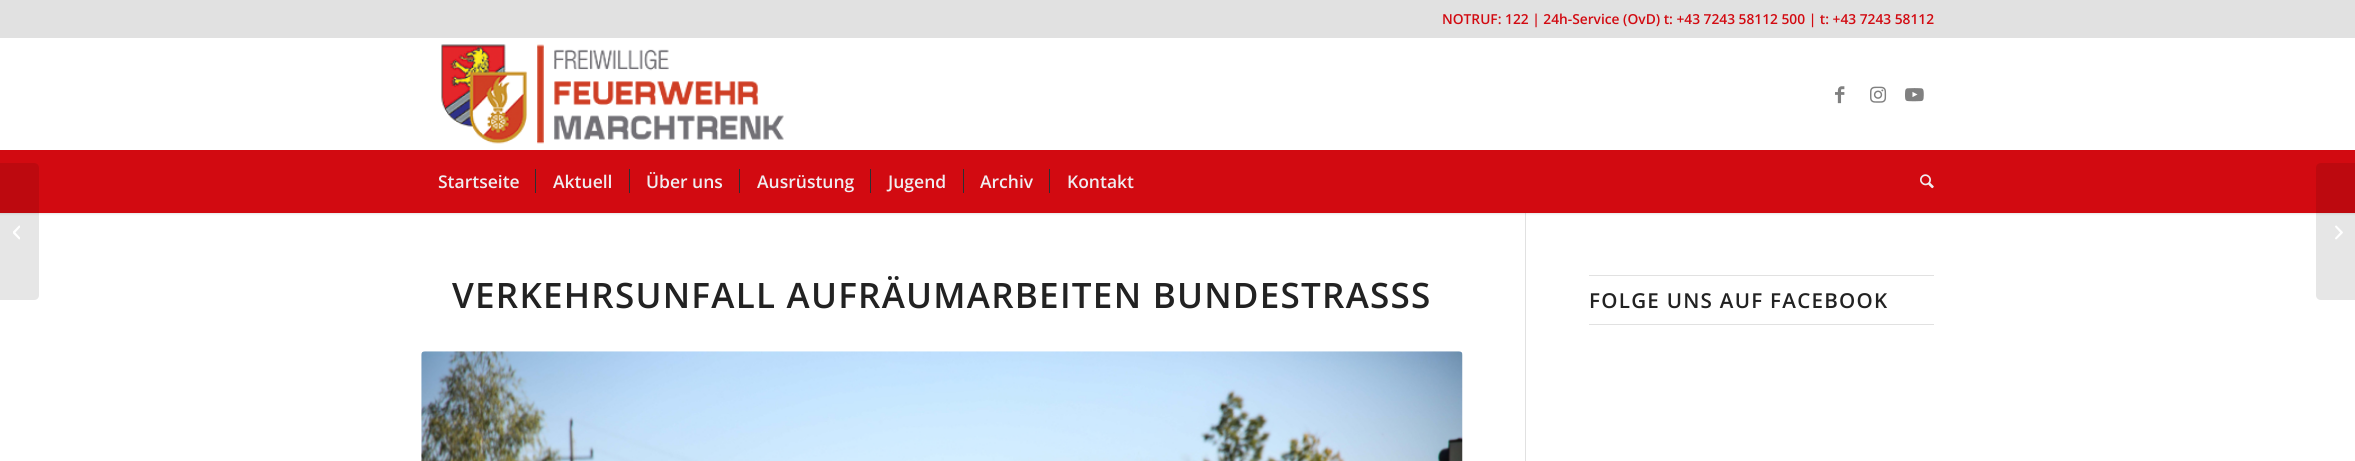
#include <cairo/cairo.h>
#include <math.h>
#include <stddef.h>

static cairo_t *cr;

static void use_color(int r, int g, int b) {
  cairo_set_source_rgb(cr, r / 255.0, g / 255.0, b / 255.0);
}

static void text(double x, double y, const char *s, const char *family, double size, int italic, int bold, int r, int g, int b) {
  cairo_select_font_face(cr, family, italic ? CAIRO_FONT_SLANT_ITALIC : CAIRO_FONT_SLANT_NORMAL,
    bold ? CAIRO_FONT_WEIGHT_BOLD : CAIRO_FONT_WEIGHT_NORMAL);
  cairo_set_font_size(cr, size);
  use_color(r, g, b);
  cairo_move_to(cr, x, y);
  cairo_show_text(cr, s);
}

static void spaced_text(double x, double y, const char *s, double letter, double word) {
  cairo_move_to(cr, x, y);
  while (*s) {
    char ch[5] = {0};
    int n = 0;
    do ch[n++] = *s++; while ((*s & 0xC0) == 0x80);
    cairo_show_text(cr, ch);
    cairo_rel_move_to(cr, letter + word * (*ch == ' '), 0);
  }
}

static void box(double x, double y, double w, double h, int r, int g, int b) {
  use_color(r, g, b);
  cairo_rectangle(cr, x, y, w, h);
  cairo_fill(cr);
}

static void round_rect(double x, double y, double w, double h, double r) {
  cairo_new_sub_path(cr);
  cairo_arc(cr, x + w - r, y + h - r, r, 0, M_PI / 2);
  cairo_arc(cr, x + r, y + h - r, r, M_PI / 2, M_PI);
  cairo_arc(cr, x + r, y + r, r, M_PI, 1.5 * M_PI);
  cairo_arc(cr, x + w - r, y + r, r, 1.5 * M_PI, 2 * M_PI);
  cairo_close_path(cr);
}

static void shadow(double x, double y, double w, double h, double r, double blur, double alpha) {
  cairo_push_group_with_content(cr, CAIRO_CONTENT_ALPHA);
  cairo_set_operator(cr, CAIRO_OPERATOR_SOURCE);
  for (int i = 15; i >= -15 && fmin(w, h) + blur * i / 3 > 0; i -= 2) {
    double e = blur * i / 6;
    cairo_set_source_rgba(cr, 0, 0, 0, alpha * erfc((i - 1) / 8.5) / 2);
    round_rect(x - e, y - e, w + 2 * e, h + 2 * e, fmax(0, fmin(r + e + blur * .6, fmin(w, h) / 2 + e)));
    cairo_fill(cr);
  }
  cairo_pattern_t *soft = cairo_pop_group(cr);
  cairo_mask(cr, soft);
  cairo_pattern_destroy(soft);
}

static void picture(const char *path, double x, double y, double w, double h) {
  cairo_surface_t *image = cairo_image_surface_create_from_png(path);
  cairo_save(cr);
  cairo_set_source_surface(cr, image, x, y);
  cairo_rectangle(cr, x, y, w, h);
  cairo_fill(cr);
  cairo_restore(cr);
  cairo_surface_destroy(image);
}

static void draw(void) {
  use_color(255, 255, 255);
  cairo_paint(cr);
  box(1525, 213, 1, 248, 225, 225, 225);
  use_color(0, 0, 0);
  shadow(-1, -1, 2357, 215, 0, 1, 0.1);
  box(0, 0, 2355, 38, 225, 225, 225);
  box(0, 38, 2355, 112, 255, 255, 255);
  picture("img_01.png", 441, 44, 343, 100);
  picture("img_02.png", 1835, 86, 10, 18);
  picture("img_03.png", 1870, 86, 17, 17);
  picture("img_04.png", 1905, 88, 19, 14);
  box(0, 150, 2355, 63, 210, 10, 17);
  box(535, 169, 1, 24, 44, 48, 51);
  box(629, 169, 1, 24, 44, 48, 51);
  box(739, 169, 1, 24, 44, 48, 51);
  box(870, 169, 1, 24, 44, 48, 51);
  box(963, 169, 1, 24, 44, 48, 51);
  box(1049, 169, 1, 24, 44, 48, 51);
  picture("img_05.png", 1920, 174, 14, 15);
  cairo_set_source_rgba(cr, 0, 0, 0, 0.1);
  cairo_new_path(cr);
  cairo_move_to(cr, 0, 163);
  cairo_line_to(cr, 34, 163);
  cairo_curve_to(cr, 37, 163, 39, 165, 39, 168);
  cairo_line_to(cr, 39, 295);
  cairo_curve_to(cr, 39, 298, 37, 300, 34, 300);
  cairo_line_to(cr, 0, 300);
  cairo_close_path(cr);
  cairo_fill(cr);
  picture("img_06.png", 13, 225, 7, 15);
  picture("img_07.png", 421, 351, 1042, 110);
  box(1589, 275, 345, 1, 225, 225, 225);
  box(1589, 324, 345, 1, 225, 225, 225);
  cairo_set_source_rgba(cr, 0, 0, 0, 0.1);
  cairo_new_path(cr);
  cairo_move_to(cr, 2321, 163);
  cairo_line_to(cr, 2355, 163);
  cairo_line_to(cr, 2355, 300);
  cairo_line_to(cr, 2321, 300);
  cairo_curve_to(cr, 2318, 300, 2316, 298, 2316, 295);
  cairo_line_to(cr, 2316, 168);
  cairo_curve_to(cr, 2316, 165, 2318, 163, 2321, 163);
  cairo_close_path(cr);
  cairo_fill(cr);
  picture("img_08.png", 2335, 225, 8, 15);
  text(1442, 24, "NOTRUF: 122 | 24h-Service (OvD) t: +43 7243 58112 500 | t: +43 7243 58112", "Open Sans SemiBold", 13.75, 0, 0, 210, 10, 17);
  text(438, 188, "Startseite", "Open Sans SemiBold", 17.5, 0, 0, 240, 237, 240);
  text(553, 188, "Aktuell", "Open Sans SemiBold", 17.5, 0, 0, 240, 237, 240);
  text(646, 188, "Über uns", "Open Sans SemiBold", 17.5, 0, 0, 240, 237, 240);
  text(757, 188, "Ausrüstung", "Open Sans SemiBold", 17.5, 0, 0, 240, 237, 240);
  text(888, 188, "Jugend", "Open Sans SemiBold", 17.5, 0, 0, 240, 237, 240);
  text(980, 188, "Archiv", "Open Sans SemiBold", 17.5, 0, 0, 240, 237, 240);
  text(1067, 188, "Kontakt", "Open Sans SemiBold", 17.5, 0, 0, 240, 237, 240);
  cairo_set_font_size(cr, 35);
  use_color(34, 34, 34);
  spaced_text(452, 308, "VERKEHRSUNFALL AUFRÄUMARBEITEN BUNDESTRASSS", 1.25, 0);
  cairo_set_font_size(cr, 20.6);
  spaced_text(1589, 308, "FOLGE UNS AUF FACEBOOK", 1.25, 0);
}

int main(void) {
  cairo_surface_t *surface = cairo_image_surface_create(CAIRO_FORMAT_RGB24, 2355, 461);
  cr = cairo_create(surface);
  cairo_font_options_t *options = cairo_font_options_create();
  cairo_font_options_set_hint_metrics(options, CAIRO_HINT_METRICS_OFF);
  cairo_font_options_set_hint_style(options, CAIRO_HINT_STYLE_NONE);
  cairo_set_font_options(cr, options);
  cairo_set_miter_limit(cr, 4);
  draw();
  cairo_surface_write_to_png(surface, "out.png");
  cairo_font_options_destroy(options);
  cairo_destroy(cr);
  cairo_surface_destroy(surface);
  return 0;
}
